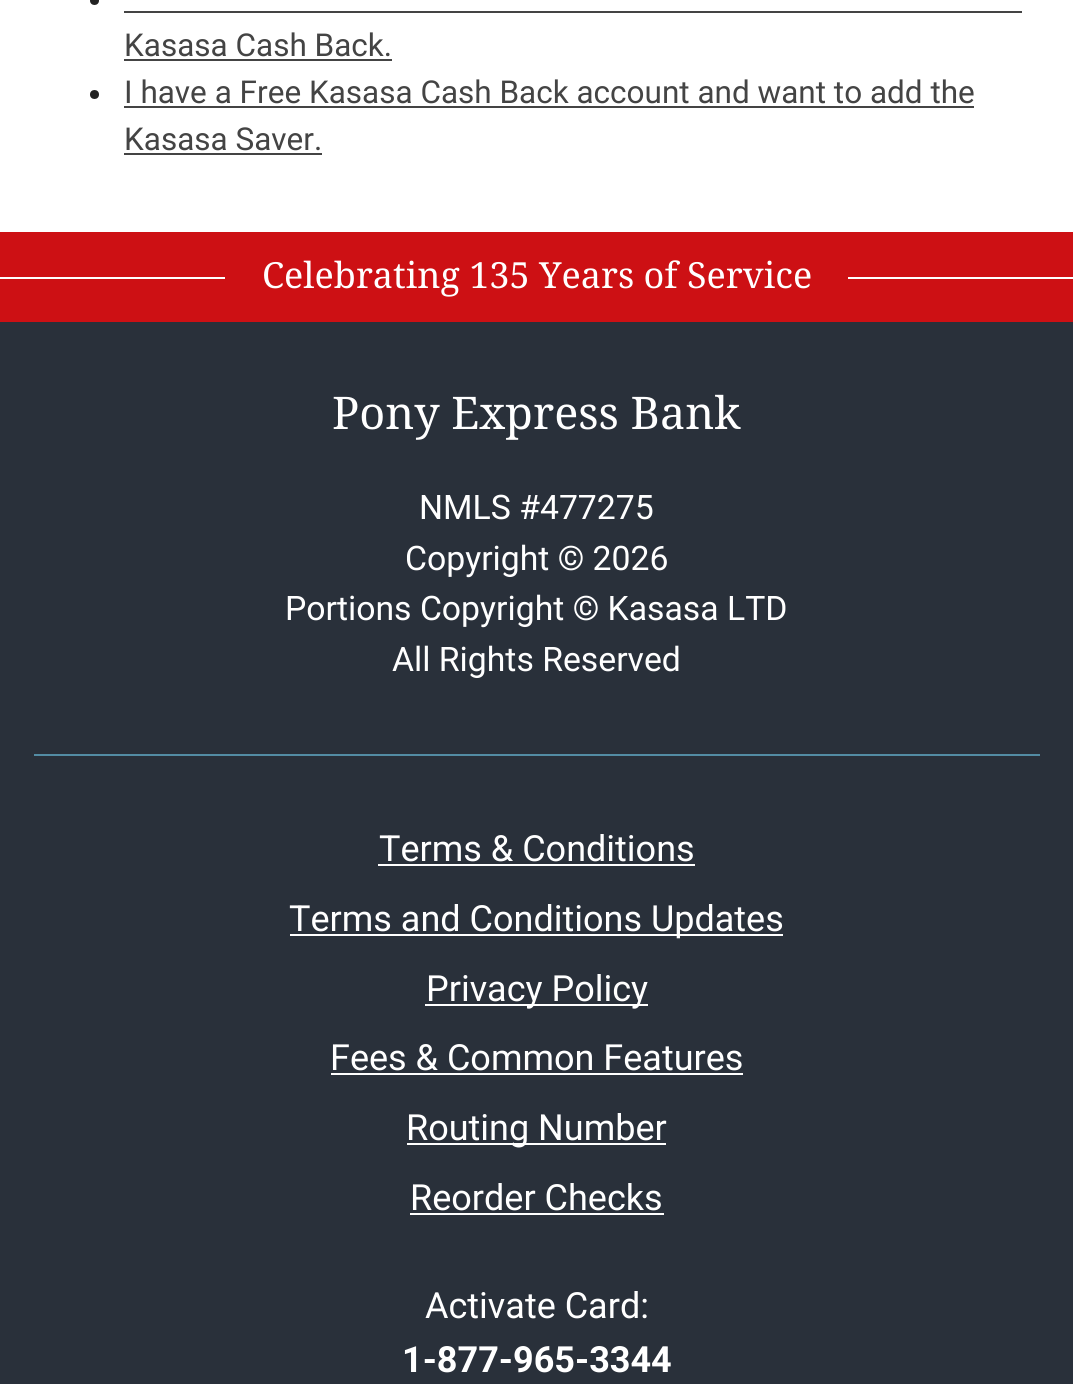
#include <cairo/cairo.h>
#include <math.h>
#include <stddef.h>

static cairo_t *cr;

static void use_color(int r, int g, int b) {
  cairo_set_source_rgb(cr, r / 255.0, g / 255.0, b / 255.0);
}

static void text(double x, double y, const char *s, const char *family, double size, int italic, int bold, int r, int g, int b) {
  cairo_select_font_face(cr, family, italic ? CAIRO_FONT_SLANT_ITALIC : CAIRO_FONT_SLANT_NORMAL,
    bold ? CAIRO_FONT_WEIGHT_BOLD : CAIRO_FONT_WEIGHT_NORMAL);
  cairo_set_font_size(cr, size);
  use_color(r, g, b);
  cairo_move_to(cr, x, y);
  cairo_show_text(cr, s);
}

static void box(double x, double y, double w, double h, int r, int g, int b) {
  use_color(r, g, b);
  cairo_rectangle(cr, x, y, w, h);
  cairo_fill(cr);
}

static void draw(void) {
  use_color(255, 255, 255);
  cairo_paint(cr);
  use_color(34, 34, 34);
  cairo_arc(cr, 94.5, 0.5, 4.5, 0, 2 * M_PI);
  cairo_fill(cr);
  box(124, 11, 898, 2, 68, 68, 68);
  box(124, 59, 268, 2, 68, 68, 68);
  use_color(34, 34, 34);
  cairo_arc(cr, 94.5, 94.5, 4.5, 0, 2 * M_PI);
  cairo_fill(cr);
  box(124, 106, 850, 2, 68, 68, 68);
  box(124, 153, 198, 2, 68, 68, 68);
  box(0, 232, 1073, 90, 205, 16, 20);
  box(0, 277, 225, 2, 255, 255, 255);
  box(848, 277, 225, 2, 255, 255, 255);
  box(0, 322, 1073, 1062, 41, 48, 58);
  box(34, 754, 1006, 2, 83, 140, 164);
  box(378, 864, 317, 2, 255, 255, 255);
  box(290, 934, 493, 2, 255, 255, 255);
  box(425, 1004, 223, 2, 255, 255, 255);
  box(331, 1073, 412, 2, 255, 255, 255);
  box(407, 1143, 259, 2, 255, 255, 255);
  box(410, 1213, 254, 2, 255, 255, 255);
  text(124, 56, "Kasasa Cash Back.", "Roboto", 31.5, 0, 0, 68, 68, 68);
  text(124, 103, "I have a Free Kasasa Cash Back account and want to add the", "Roboto", 31.5, 0, 0, 68, 68, 68);
  text(124, 150, "Kasasa Saver.", "Roboto", 31.5, 0, 0, 68, 68, 68);
  text(262, 288, "Celebrating 135 Years of Service", "Droid Serif", 36, 0, 0, 255, 255, 255);
  text(332, 429, "Pony Express Bank", "Droid Serif", 45, 0, 0, 255, 255, 255);
  text(419, 519, "NMLS #477275", "Roboto", 33.75, 0, 0, 255, 255, 255);
  text(405, 570, "Copyright © 2026", "Roboto", 33.75, 0, 0, 255, 255, 255);
  text(285, 620, "Portions Copyright © Kasasa LTD", "Roboto", 33.75, 0, 0, 255, 255, 255);
  text(392, 671, "All Rights Reserved", "Roboto", 33.75, 0, 0, 255, 255, 255);
  text(379, 861, "Terms & Conditions", "Roboto", 36, 0, 0, 255, 255, 255);
  text(289, 931, "Terms and Conditions Updates", "Roboto", 36, 0, 0, 255, 255, 255);
  text(426, 1001, "Privacy Policy", "Roboto", 36, 0, 0, 255, 255, 255);
  text(330, 1070, "Fees & Common Features", "Roboto", 36, 0, 0, 255, 255, 255);
  text(406, 1140, "Routing Number", "Roboto", 36, 0, 0, 255, 255, 255);
  text(410, 1210, "Reorder Checks", "Roboto", 36, 0, 0, 255, 255, 255);
  text(425, 1318, "Activate Card:", "Roboto", 36, 0, 0, 255, 255, 255);
  text(402, 1372, "1-877-965-3344", "Roboto", 36, 0, 1, 255, 255, 255);
}

int main(void) {
  cairo_surface_t *surface = cairo_image_surface_create(CAIRO_FORMAT_RGB24, 1073, 1384);
  cr = cairo_create(surface);
  cairo_font_options_t *options = cairo_font_options_create();
  cairo_font_options_set_hint_metrics(options, CAIRO_HINT_METRICS_OFF);
  cairo_font_options_set_hint_style(options, CAIRO_HINT_STYLE_NONE);
  cairo_set_font_options(cr, options);
  cairo_set_miter_limit(cr, 4);
  draw();
  cairo_surface_write_to_png(surface, "out.png");
  cairo_font_options_destroy(options);
  cairo_destroy(cr);
  cairo_surface_destroy(surface);
  return 0;
}
